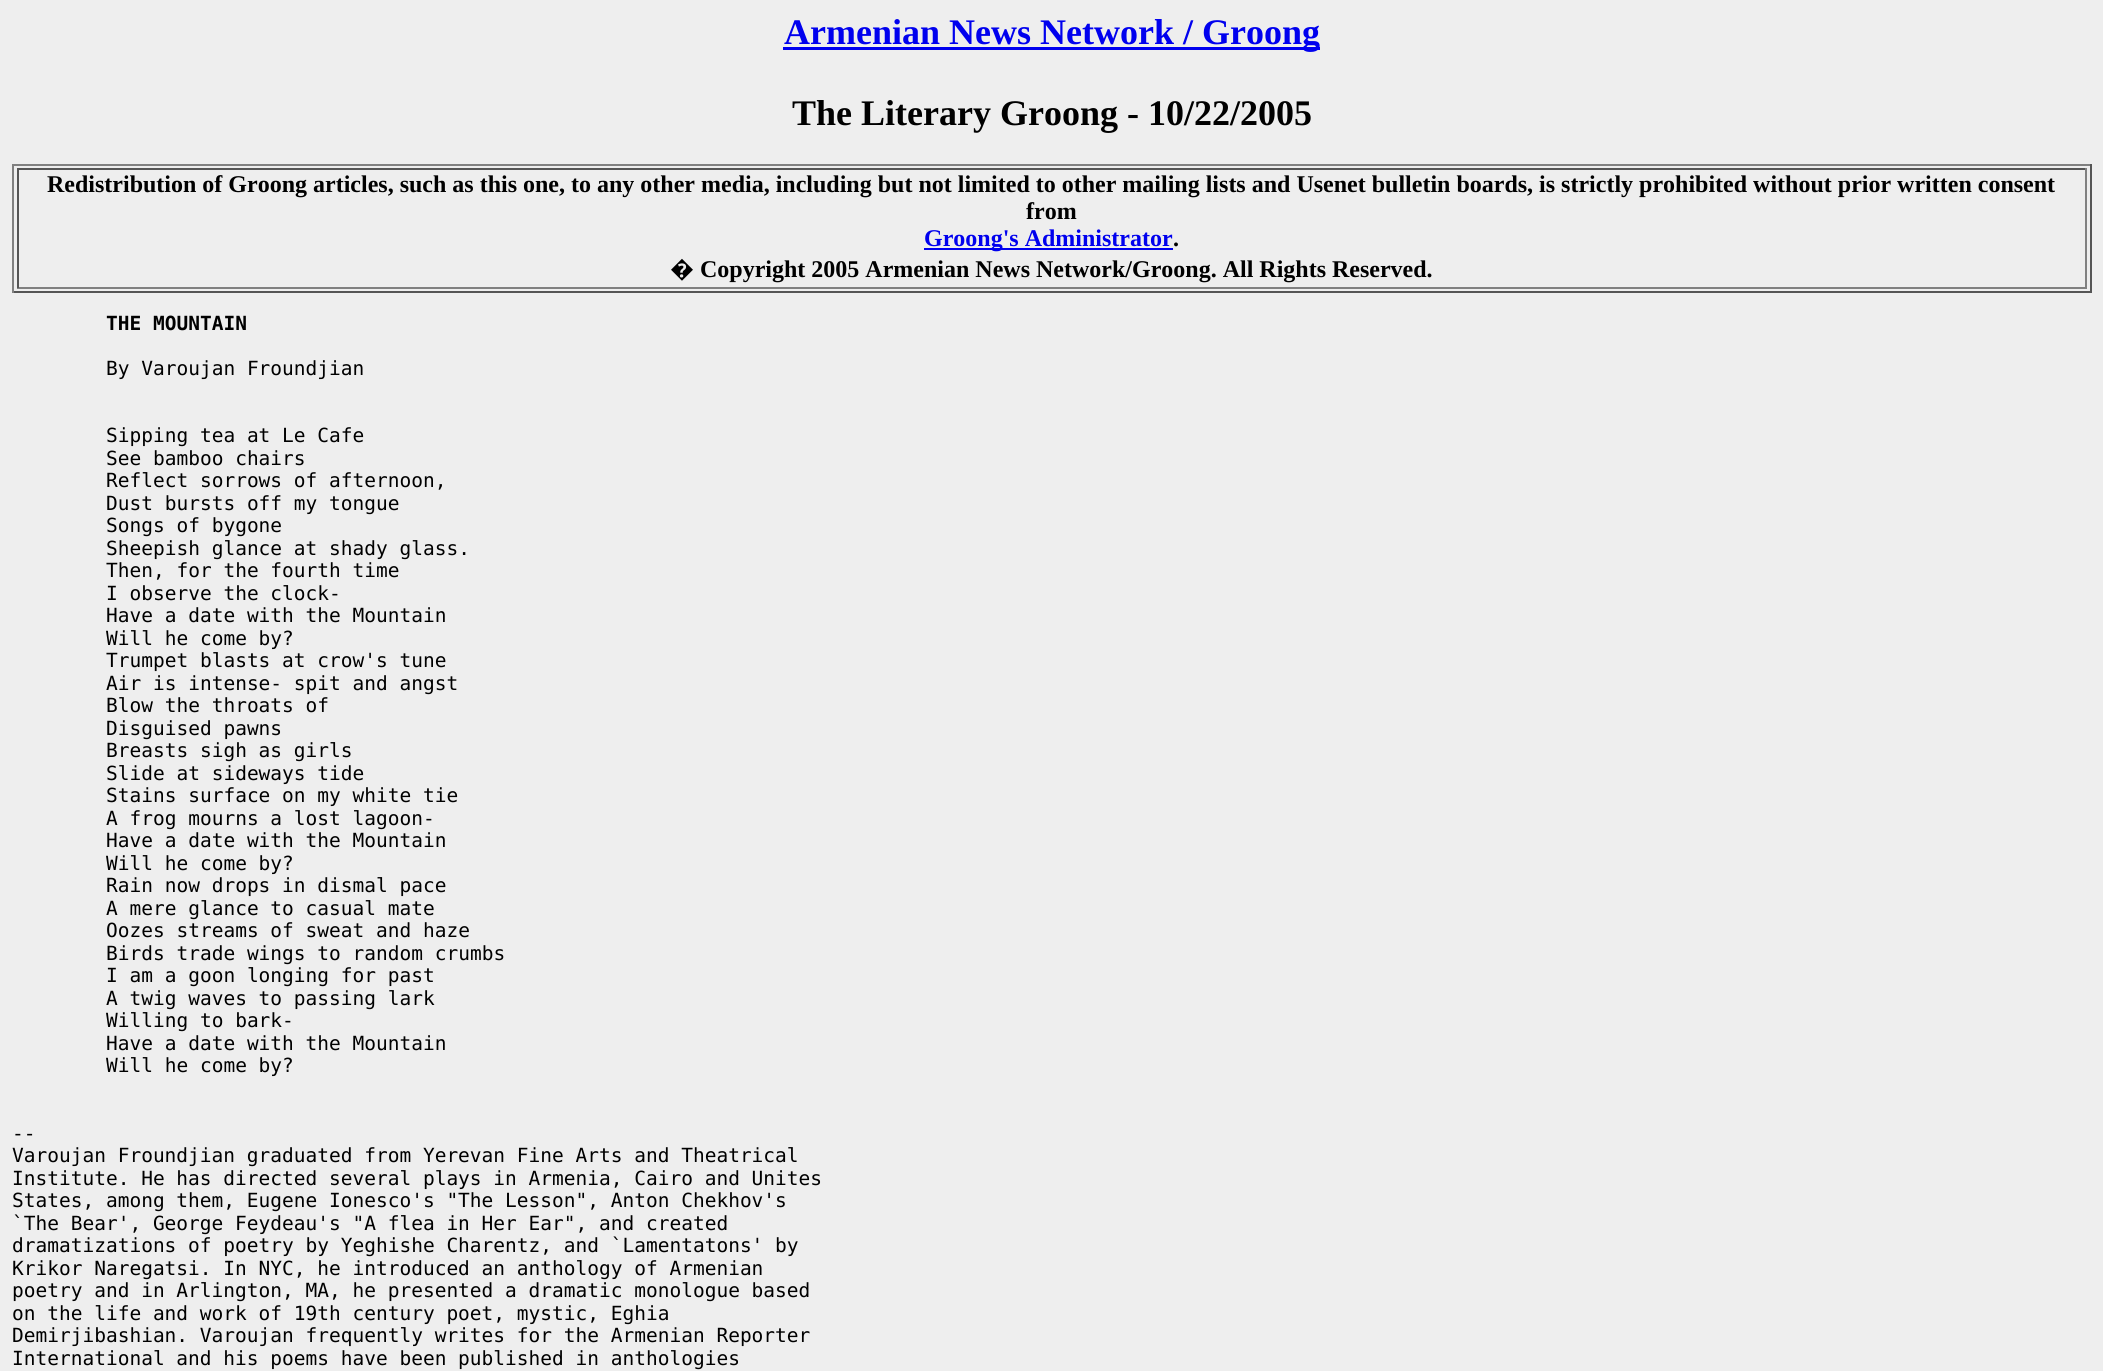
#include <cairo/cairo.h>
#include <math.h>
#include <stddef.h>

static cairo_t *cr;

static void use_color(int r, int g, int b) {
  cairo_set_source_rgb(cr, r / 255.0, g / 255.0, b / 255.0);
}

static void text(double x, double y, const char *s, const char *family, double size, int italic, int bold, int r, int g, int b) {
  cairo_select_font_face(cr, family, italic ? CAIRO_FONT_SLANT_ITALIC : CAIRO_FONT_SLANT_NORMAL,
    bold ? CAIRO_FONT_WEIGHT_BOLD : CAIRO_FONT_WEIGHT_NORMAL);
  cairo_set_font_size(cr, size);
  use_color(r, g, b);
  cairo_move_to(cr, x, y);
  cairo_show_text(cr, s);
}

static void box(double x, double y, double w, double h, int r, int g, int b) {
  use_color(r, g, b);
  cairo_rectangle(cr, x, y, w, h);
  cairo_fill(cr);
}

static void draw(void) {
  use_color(238, 238, 238);
  cairo_paint(cr);
  box(783, 47, 537, 3, 0, 0, 238);
  box(12, 164, 2079, 2, 128, 128, 128);
  box(2090, 164, 2, 129, 85, 85, 85);
  box(12, 291, 2079, 2, 85, 85, 85);
  box(12, 164, 2, 129, 128, 128, 128);
  box(17, 168, 2070, 2, 85, 85, 85);
  box(2085, 168, 2, 120, 128, 128, 128);
  box(17, 287, 2070, 2, 128, 128, 128);
  box(17, 168, 2, 120, 85, 85, 85);
  box(924, 248, 249, 2, 0, 0, 238);
  text(784, 44, "Armenian News Network / Groong", "Liberation Serif", 36, 0, 1, 0, 0, 238);
  text(792, 125, "The Literary Groong - 10/22/2005", "Liberation Serif", 36, 0, 1, 0, 0, 0);
  text(47, 192, "Redistribution of Groong articles, such as this one, to any other media, including but not limited to other mailing lists and Usenet bulletin boards, is strictly prohibited without prior written consent", "Liberation Serif", 24, 0, 1, 0, 0, 0);
  text(1026, 219, "from", "Liberation Serif", 24, 0, 1, 0, 0, 0);
  text(924, 246, "Groong's Administrator", "Liberation Serif", 24, 0, 1, 0, 0, 238);
  text(1173, 246, ".", "Liberation Serif", 24, 0, 1, 0, 0, 0);
  text(670, 277, "�", "Noto Sans", 24, 0, 1, 0, 0, 0);
  text(700, 277, "Copyright 2005 Armenian News Network/Groong. All Rights Reserved.", "Liberation Serif", 24, 0, 1, 0, 0, 0);
  text(106, 330, "THE MOUNTAIN", "DejaVu Sans Mono", 19.5, 0, 1, 0, 0, 0);
  text(106, 375, "By Varoujan Froundjian", "DejaVu Sans Mono", 19.5, 0, 0, 0, 0, 0);
  text(106, 442, "Sipping tea at Le Cafe", "DejaVu Sans Mono", 19.5, 0, 0, 0, 0, 0);
  text(106, 465, "See bamboo chairs", "DejaVu Sans Mono", 19.5, 0, 0, 0, 0, 0);
  text(106, 487, "Reflect sorrows of afternoon,", "DejaVu Sans Mono", 19.5, 0, 0, 0, 0, 0);
  text(106, 510, "Dust bursts off my tongue", "DejaVu Sans Mono", 19.5, 0, 0, 0, 0, 0);
  text(106, 532, "Songs of bygone", "DejaVu Sans Mono", 19.5, 0, 0, 0, 0, 0);
  text(106, 555, "Sheepish glance at shady glass.", "DejaVu Sans Mono", 19.5, 0, 0, 0, 0, 0);
  text(106, 577, "Then, for the fourth time", "DejaVu Sans Mono", 19.5, 0, 0, 0, 0, 0);
  text(106, 600, "I observe the clock-", "DejaVu Sans Mono", 19.5, 0, 0, 0, 0, 0);
  text(106, 622, "Have a date with the Mountain", "DejaVu Sans Mono", 19.5, 0, 0, 0, 0, 0);
  text(106, 645, "Will he come by?", "DejaVu Sans Mono", 19.5, 0, 0, 0, 0, 0);
  text(106, 667, "Trumpet blasts at crow's tune", "DejaVu Sans Mono", 19.5, 0, 0, 0, 0, 0);
  text(106, 690, "Air is intense- spit and angst", "DejaVu Sans Mono", 19.5, 0, 0, 0, 0, 0);
  text(106, 712, "Blow the throats of", "DejaVu Sans Mono", 19.5, 0, 0, 0, 0, 0);
  text(106, 735, "Disguised pawns", "DejaVu Sans Mono", 19.5, 0, 0, 0, 0, 0);
  text(106, 757, "Breasts sigh as girls", "DejaVu Sans Mono", 19.5, 0, 0, 0, 0, 0);
  text(106, 780, "Slide at sideways tide", "DejaVu Sans Mono", 19.5, 0, 0, 0, 0, 0);
  text(106, 802, "Stains surface on my white tie", "DejaVu Sans Mono", 19.5, 0, 0, 0, 0, 0);
  text(106, 825, "A frog mourns a lost lagoon-", "DejaVu Sans Mono", 19.5, 0, 0, 0, 0, 0);
  text(106, 847, "Have a date with the Mountain", "DejaVu Sans Mono", 19.5, 0, 0, 0, 0, 0);
  text(106, 870, "Will he come by?", "DejaVu Sans Mono", 19.5, 0, 0, 0, 0, 0);
  text(106, 892, "Rain now drops in dismal pace", "DejaVu Sans Mono", 19.5, 0, 0, 0, 0, 0);
  text(106, 915, "A mere glance to casual mate", "DejaVu Sans Mono", 19.5, 0, 0, 0, 0, 0);
  text(106, 937, "Oozes streams of sweat and haze", "DejaVu Sans Mono", 19.5, 0, 0, 0, 0, 0);
  text(106, 960, "Birds trade wings to random crumbs", "DejaVu Sans Mono", 19.5, 0, 0, 0, 0, 0);
  text(106, 982, "I am a goon longing for past", "DejaVu Sans Mono", 19.5, 0, 0, 0, 0, 0);
  text(106, 1005, "A twig waves to passing lark", "DejaVu Sans Mono", 19.5, 0, 0, 0, 0, 0);
  text(106, 1027, "Willing to bark-", "DejaVu Sans Mono", 19.5, 0, 0, 0, 0, 0);
  text(106, 1050, "Have a date with the Mountain", "DejaVu Sans Mono", 19.5, 0, 0, 0, 0, 0);
  text(106, 1072, "Will he come by?", "DejaVu Sans Mono", 19.5, 0, 0, 0, 0, 0);
  text(12, 1140, "--", "DejaVu Sans Mono", 19.5, 0, 0, 0, 0, 0);
  text(12, 1162, "Varoujan Froundjian graduated from Yerevan Fine Arts and Theatrical", "DejaVu Sans Mono", 19.5, 0, 0, 0, 0, 0);
  text(12, 1185, "Institute. He has directed several plays in Armenia, Cairo and Unites", "DejaVu Sans Mono", 19.5, 0, 0, 0, 0, 0);
  text(12, 1207, "States, among them, Eugene Ionesco's \"The Lesson\", Anton Chekhov's", "DejaVu Sans Mono", 19.5, 0, 0, 0, 0, 0);
  text(12, 1230, "`The Bear', George Feydeau's \"A flea in Her Ear\", and created", "DejaVu Sans Mono", 19.5, 0, 0, 0, 0, 0);
  text(12, 1252, "dramatizations of poetry by Yeghishe Charentz, and `Lamentatons' by", "DejaVu Sans Mono", 19.5, 0, 0, 0, 0, 0);
  text(12, 1275, "Krikor Naregatsi. In NYC, he introduced an anthology of Armenian", "DejaVu Sans Mono", 19.5, 0, 0, 0, 0, 0);
  text(12, 1297, "poetry and in Arlington, MA, he presented a dramatic monologue based", "DejaVu Sans Mono", 19.5, 0, 0, 0, 0, 0);
  text(12, 1320, "on the life and work of 19th century poet, mystic, Eghia", "DejaVu Sans Mono", 19.5, 0, 0, 0, 0, 0);
  text(12, 1342, "Demirjibashian. Varoujan frequently writes for the Armenian Reporter", "DejaVu Sans Mono", 19.5, 0, 0, 0, 0, 0);
  text(12, 1365, "International and his poems have been published in anthologies", "DejaVu Sans Mono", 19.5, 0, 0, 0, 0, 0);
}

int main(void) {
  cairo_surface_t *surface = cairo_image_surface_create(CAIRO_FORMAT_RGB24, 2103, 1371);
  cr = cairo_create(surface);
  cairo_font_options_t *options = cairo_font_options_create();
  cairo_font_options_set_hint_metrics(options, CAIRO_HINT_METRICS_OFF);
  cairo_font_options_set_hint_style(options, CAIRO_HINT_STYLE_NONE);
  cairo_set_font_options(cr, options);
  cairo_set_miter_limit(cr, 4);
  draw();
  cairo_surface_write_to_png(surface, "out.png");
  cairo_font_options_destroy(options);
  cairo_destroy(cr);
  cairo_surface_destroy(surface);
  return 0;
}
